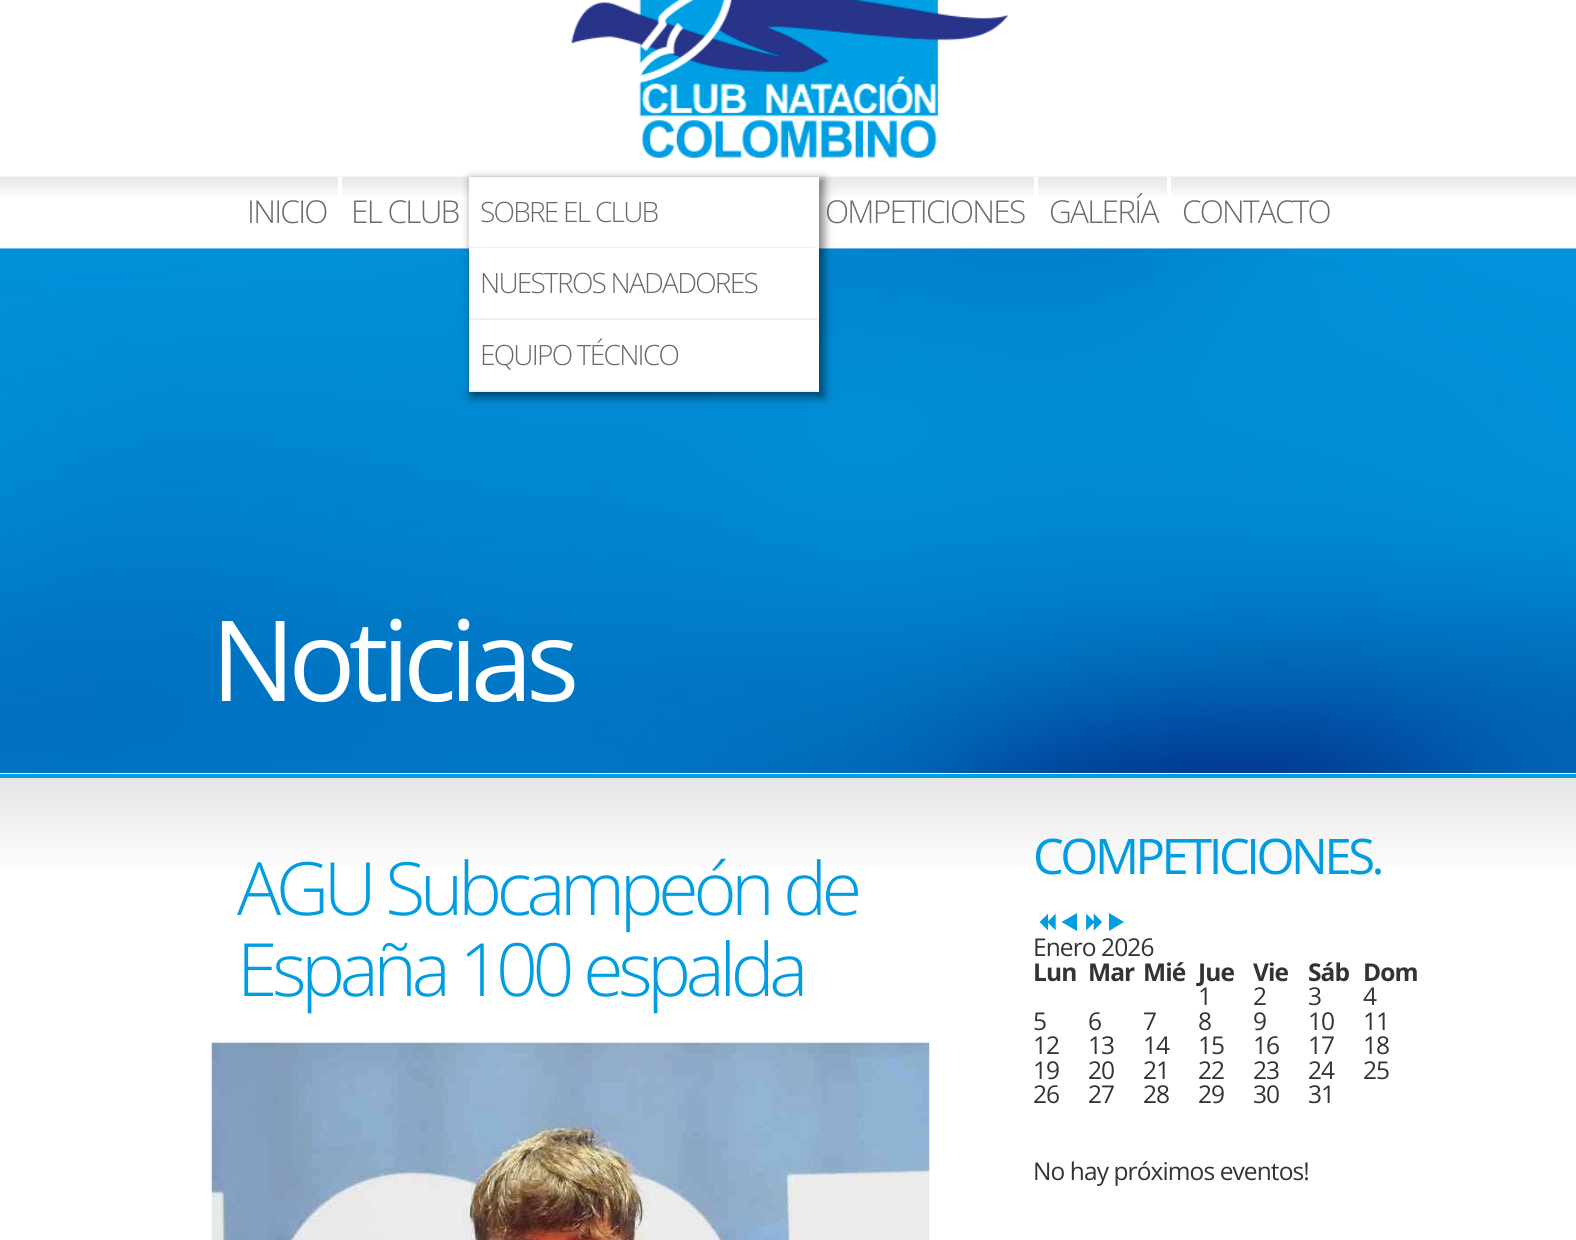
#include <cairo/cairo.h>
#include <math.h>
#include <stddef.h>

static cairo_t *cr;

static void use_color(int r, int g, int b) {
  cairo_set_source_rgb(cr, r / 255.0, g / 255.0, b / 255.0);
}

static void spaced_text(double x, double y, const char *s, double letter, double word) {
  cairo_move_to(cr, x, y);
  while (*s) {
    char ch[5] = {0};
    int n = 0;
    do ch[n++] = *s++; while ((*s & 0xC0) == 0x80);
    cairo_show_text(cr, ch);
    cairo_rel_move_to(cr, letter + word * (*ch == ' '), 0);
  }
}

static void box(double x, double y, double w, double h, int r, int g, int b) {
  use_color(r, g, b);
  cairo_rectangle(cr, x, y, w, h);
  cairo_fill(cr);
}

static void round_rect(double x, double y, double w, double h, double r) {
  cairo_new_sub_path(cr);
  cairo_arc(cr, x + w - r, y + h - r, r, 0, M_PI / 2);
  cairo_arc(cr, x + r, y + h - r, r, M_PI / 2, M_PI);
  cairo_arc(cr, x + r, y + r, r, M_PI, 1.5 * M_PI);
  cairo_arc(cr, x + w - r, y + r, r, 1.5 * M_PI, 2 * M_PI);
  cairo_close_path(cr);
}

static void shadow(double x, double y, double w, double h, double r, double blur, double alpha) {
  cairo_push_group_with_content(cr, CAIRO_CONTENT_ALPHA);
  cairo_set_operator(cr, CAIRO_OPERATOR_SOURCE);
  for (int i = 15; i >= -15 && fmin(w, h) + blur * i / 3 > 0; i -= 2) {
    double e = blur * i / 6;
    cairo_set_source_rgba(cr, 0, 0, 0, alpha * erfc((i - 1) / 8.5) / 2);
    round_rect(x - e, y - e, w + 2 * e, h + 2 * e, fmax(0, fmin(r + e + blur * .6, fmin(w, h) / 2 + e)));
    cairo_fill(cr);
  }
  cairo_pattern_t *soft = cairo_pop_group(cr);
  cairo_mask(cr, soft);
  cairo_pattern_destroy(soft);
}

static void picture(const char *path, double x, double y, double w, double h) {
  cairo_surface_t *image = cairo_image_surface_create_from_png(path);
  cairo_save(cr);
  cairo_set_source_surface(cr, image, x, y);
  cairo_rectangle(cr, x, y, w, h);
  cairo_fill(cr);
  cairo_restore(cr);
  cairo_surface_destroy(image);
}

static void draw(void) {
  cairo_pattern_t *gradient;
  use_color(255, 255, 255);
  cairo_paint(cr);
  picture("img_01.png", 0, 176, 1576, 20);
  picture("img_02.png", 571, 0, 437, 158);
  box(338, 177, 4, 19, 255, 255, 255);
  picture("img_03.png", 0, 248, 1576, 526);
  use_color(0, 0, 0);
  shadow(471, 179, 353, 218, 0, 4.5, 0.5);
  box(469, 177, 350, 215, 255, 255, 255);
  use_color(238, 238, 238);
  cairo_new_path(cr);
  cairo_move_to(cr, 819, 248);
  cairo_line_to(cr, 469, 248);
  cairo_line_to(cr, 469, 247);
  cairo_line_to(cr, 816, 247);
  cairo_close_path(cr);
  cairo_fill(cr);
  cairo_new_path(cr);
  cairo_move_to(cr, 819, 320);
  cairo_line_to(cr, 469, 320);
  cairo_line_to(cr, 469, 318);
  cairo_line_to(cr, 816, 318);
  cairo_close_path(cr);
  cairo_fill(cr);
  cairo_new_path(cr);
  cairo_move_to(cr, 819, 392);
  cairo_line_to(cr, 469, 392);
  cairo_line_to(cr, 469, 390);
  cairo_line_to(cr, 816, 390);
  cairo_close_path(cr);
  cairo_fill(cr);
  box(1034, 177, 4, 19, 255, 255, 255);
  box(1167, 177, 4, 19, 255, 255, 255);
  gradient = cairo_pattern_create_linear(788, 777, 788, 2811);
  cairo_pattern_add_color_stop_rgba(gradient, 0, 0.898, 0.898, 0.898, 1);
  cairo_pattern_add_color_stop_rgba(gradient, 0.05, 1, 1, 1, 1);
  cairo_set_source(cr, gradient);
  cairo_pattern_destroy(gradient);
  cairo_rectangle(cr, 0, 778, 1576, 91);
  cairo_fill(cr);
  box(0, 774, 1576, 4, 0, 157, 226);
  picture("img_04.png", 211, 1042, 719, 198);
  picture("img_05.png", 1039, 913, 17, 18);
  cairo_new_path(cr);
  cairo_move_to(cr, 1077, 931);
  cairo_line_to(cr, 1061.5, 922);
  cairo_line_to(cr, 1077, 913);
  cairo_close_path(cr);
  cairo_fill(cr);
  picture("img_06.png", 1086, 913, 16, 18);
  cairo_new_path(cr);
  cairo_move_to(cr, 1109, 913);
  cairo_line_to(cr, 1124, 922);
  cairo_line_to(cr, 1109, 931);
  cairo_close_path(cr);
  cairo_fill(cr);
  cairo_select_font_face(cr, "Open Sans Light", CAIRO_FONT_SLANT_NORMAL, CAIRO_FONT_WEIGHT_NORMAL);
  cairo_set_font_size(cr, 31.5);
  use_color(106, 106, 106);
  spaced_text(247, 223, "INICIO", -1.75, 0);
  spaced_text(351, 223, "EL CLUB", -1.75, 0);
  cairo_set_font_size(cr, 28);
  spaced_text(480, 222, "SOBRE EL CLUB", -1.75, 0);
  spaced_text(480, 293, "NUESTROS NADADORES", -1.75, 0);
  spaced_text(480, 365, "EQUIPO TÉCNICO", -1.75, 0);
  cairo_set_font_size(cr, 31.5);
  spaced_text(825, 223, "OMPETICIONES", -1.75, 0);
  spaced_text(1049, 223, "GALERÍA", -1.75, 0);
  spaced_text(1182, 223, "CONTACTO", -1.75, 0);
  cairo_select_font_face(cr, "Open Sans", CAIRO_FONT_SLANT_NORMAL, CAIRO_FONT_WEIGHT_NORMAL);
  cairo_set_font_size(cr, 112);
  use_color(255, 255, 255);
  spaced_text(211, 701, "Noticias", -7, 0);
  cairo_select_font_face(cr, "Open Sans Light", CAIRO_FONT_SLANT_NORMAL, CAIRO_FONT_WEIGHT_NORMAL);
  cairo_set_font_size(cr, 73.5);
  use_color(0, 157, 226);
  spaced_text(237, 915, "AGU Subcampeón de", -5.25, 0);
  spaced_text(237, 996, "España 100 espalda", -5.25, 0);
  cairo_select_font_face(cr, "Open Sans", CAIRO_FONT_SLANT_NORMAL, CAIRO_FONT_WEIGHT_NORMAL);
  cairo_set_font_size(cr, 49);
  spaced_text(1033, 874, "COMPETICIONES.", -3.5, 0);
  cairo_set_font_size(cr, 24.5);
  use_color(51, 51, 51);
  spaced_text(1033, 956, "Enero 2026", -0.9, 0);
  cairo_select_font_face(cr, "Open Sans", CAIRO_FONT_SLANT_NORMAL, CAIRO_FONT_WEIGHT_BOLD);
  spaced_text(1033, 981, "Lun", -0.9, 0);
  spaced_text(1088, 981, "Mar", -0.9, 0);
  spaced_text(1143, 981, "Mié", -0.9, 0);
  spaced_text(1198, 981, "Jue", -0.9, 0);
  spaced_text(1253, 981, "Vie", -0.9, 0);
  spaced_text(1308, 981, "Sáb", -0.9, 0);
  spaced_text(1363, 981, "Dom", -0.9, 0);
  cairo_select_font_face(cr, "Open Sans", CAIRO_FONT_SLANT_NORMAL, CAIRO_FONT_WEIGHT_NORMAL);
  spaced_text(1198, 1005, "1", -0.9, 0);
  spaced_text(1253, 1005, "2", -0.9, 0);
  spaced_text(1308, 1005, "3", -0.9, 0);
  spaced_text(1363, 1005, "4", -0.9, 0);
  spaced_text(1033, 1030, "5", -0.9, 0);
  spaced_text(1088, 1030, "6", -0.9, 0);
  spaced_text(1143, 1030, "7", -0.9, 0);
  spaced_text(1198, 1030, "8", -0.9, 0);
  spaced_text(1253, 1030, "9", -0.9, 0);
  spaced_text(1308, 1030, "10", -0.9, 0);
  spaced_text(1363, 1030, "11", -0.9, 0);
  spaced_text(1033, 1054, "12", -0.9, 0);
  spaced_text(1088, 1054, "13", -0.9, 0);
  spaced_text(1143, 1054, "14", -0.9, 0);
  spaced_text(1198, 1054, "15", -0.9, 0);
  spaced_text(1253, 1054, "16", -0.9, 0);
  spaced_text(1308, 1054, "17", -0.9, 0);
  spaced_text(1363, 1054, "18", -0.9, 0);
  spaced_text(1033, 1079, "19", -0.9, 0);
  spaced_text(1088, 1079, "20", -0.9, 0);
  spaced_text(1143, 1079, "21", -0.9, 0);
  spaced_text(1198, 1079, "22", -0.9, 0);
  spaced_text(1253, 1079, "23", -0.9, 0);
  spaced_text(1308, 1079, "24", -0.9, 0);
  spaced_text(1363, 1079, "25", -0.9, 0);
  spaced_text(1033, 1103, "26", -0.9, 0);
  spaced_text(1088, 1103, "27", -0.9, 0);
  spaced_text(1143, 1103, "28", -0.9, 0);
  spaced_text(1198, 1103, "29", -0.9, 0);
  spaced_text(1253, 1103, "30", -0.9, 0);
  spaced_text(1308, 1103, "31", -0.9, 0);
  spaced_text(1033, 1180, "No hay próximos eventos!", -0.9, 0);
}

int main(void) {
  cairo_surface_t *surface = cairo_image_surface_create(CAIRO_FORMAT_RGB24, 1576, 1240);
  cr = cairo_create(surface);
  cairo_font_options_t *options = cairo_font_options_create();
  cairo_font_options_set_hint_metrics(options, CAIRO_HINT_METRICS_OFF);
  cairo_font_options_set_hint_style(options, CAIRO_HINT_STYLE_NONE);
  cairo_set_font_options(cr, options);
  cairo_set_miter_limit(cr, 4);
  draw();
  cairo_surface_write_to_png(surface, "out.png");
  cairo_font_options_destroy(options);
  cairo_destroy(cr);
  cairo_surface_destroy(surface);
  return 0;
}
